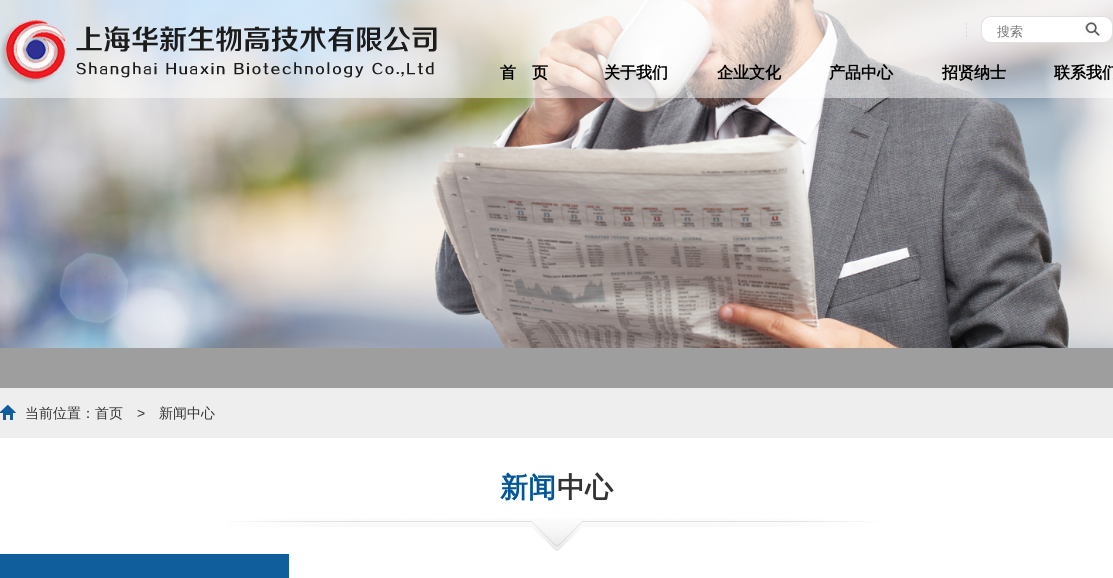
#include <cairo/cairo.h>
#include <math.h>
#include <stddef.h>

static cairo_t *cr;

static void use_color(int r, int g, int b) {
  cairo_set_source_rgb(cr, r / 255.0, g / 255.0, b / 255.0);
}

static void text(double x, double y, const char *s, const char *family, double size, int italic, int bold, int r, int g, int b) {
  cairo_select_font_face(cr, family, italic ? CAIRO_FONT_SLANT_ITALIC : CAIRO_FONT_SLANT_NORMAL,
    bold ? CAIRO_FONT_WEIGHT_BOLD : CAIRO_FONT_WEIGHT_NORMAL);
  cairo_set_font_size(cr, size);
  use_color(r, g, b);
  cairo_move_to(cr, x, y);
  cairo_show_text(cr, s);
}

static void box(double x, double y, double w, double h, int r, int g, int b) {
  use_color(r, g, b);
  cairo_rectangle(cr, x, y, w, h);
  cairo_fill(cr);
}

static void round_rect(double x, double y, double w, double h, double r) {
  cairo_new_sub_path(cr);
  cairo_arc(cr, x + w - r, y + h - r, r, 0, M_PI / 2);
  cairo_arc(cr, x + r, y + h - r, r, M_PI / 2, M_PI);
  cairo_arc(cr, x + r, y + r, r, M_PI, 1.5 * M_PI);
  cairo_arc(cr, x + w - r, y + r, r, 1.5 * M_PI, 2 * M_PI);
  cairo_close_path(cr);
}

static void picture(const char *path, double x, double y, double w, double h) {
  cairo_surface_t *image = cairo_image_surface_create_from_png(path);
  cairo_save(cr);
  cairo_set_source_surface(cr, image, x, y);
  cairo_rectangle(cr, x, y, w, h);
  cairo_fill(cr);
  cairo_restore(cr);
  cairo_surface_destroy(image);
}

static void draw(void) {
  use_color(255, 255, 255);
  cairo_paint(cr);
  picture("img_01.png", 0, 0, 1113, 348);
  cairo_set_source_rgba(cr, 1, 1, 1, 0.5);
  cairo_rectangle(cr, 0, 0, 1113, 98);
  cairo_fill(cr);
  picture("img_02.png", 0, 20, 437, 65);
  picture("img_03.png", 966, 23, 1, 14);
  use_color(255, 255, 255);
  round_rect(981.5, 16.5, 131, 26, 9.5);
  cairo_fill_preserve(cr);
  use_color(225, 225, 225);
  cairo_set_line_width(cr, 1);
  cairo_stroke(cr);
  picture("img_04.png", 1083, 21, 19, 15);
  box(0, 348, 1113, 40, 158, 158, 158);
  box(0, 388, 1113, 50, 238, 238, 238);
  picture("img_05.png", 0, 405, 16, 15);
  picture("img_06.png", 228, 518, 650, 33);
  box(0, 554, 289, 24, 16, 94, 156);
  text(997, 36, "搜索", "WenQuanYi Zen Hei Medium", 13, 0, 0, 117, 117, 117);
  text(500, 78, "首　页", "WenQuanYi Zen Hei", 16, 0, 1, 0, 0, 0);
  text(604, 78, "关于我们", "WenQuanYi Zen Hei", 16, 0, 1, 0, 0, 0);
  text(717, 78, "企业文化", "WenQuanYi Zen Hei", 16, 0, 1, 0, 0, 0);
  text(829, 78, "产品中心", "WenQuanYi Zen Hei", 16, 0, 1, 0, 0, 0);
  text(942, 78, "招贤纳士", "WenQuanYi Zen Hei", 16, 0, 1, 0, 0, 0);
  text(1054, 78, "联系我们", "WenQuanYi Zen Hei", 16, 0, 1, 0, 0, 0);
  text(25, 418, "当前位置：首页", "WenQuanYi Zen Hei Medium", 14, 0, 0, 51, 51, 51);
  text(137, 418, ">", "Liberation Sans", 14, 0, 0, 51, 51, 51);
  text(159, 418, "新闻中心", "WenQuanYi Zen Hei Medium", 14, 0, 0, 51, 51, 51);
  text(500, 497, "新闻", "WenQuanYi Zen Hei", 28, 0, 1, 2, 85, 151);
  text(557, 497, "中心", "WenQuanYi Zen Hei", 28, 0, 1, 51, 51, 51);
}

int main(void) {
  cairo_surface_t *surface = cairo_image_surface_create(CAIRO_FORMAT_RGB24, 1113, 578);
  cr = cairo_create(surface);
  cairo_font_options_t *options = cairo_font_options_create();
  cairo_font_options_set_hint_metrics(options, CAIRO_HINT_METRICS_OFF);
  cairo_font_options_set_hint_style(options, CAIRO_HINT_STYLE_NONE);
  cairo_set_font_options(cr, options);
  cairo_set_miter_limit(cr, 4);
  draw();
  cairo_surface_write_to_png(surface, "out.png");
  cairo_font_options_destroy(options);
  cairo_destroy(cr);
  cairo_surface_destroy(surface);
  return 0;
}
